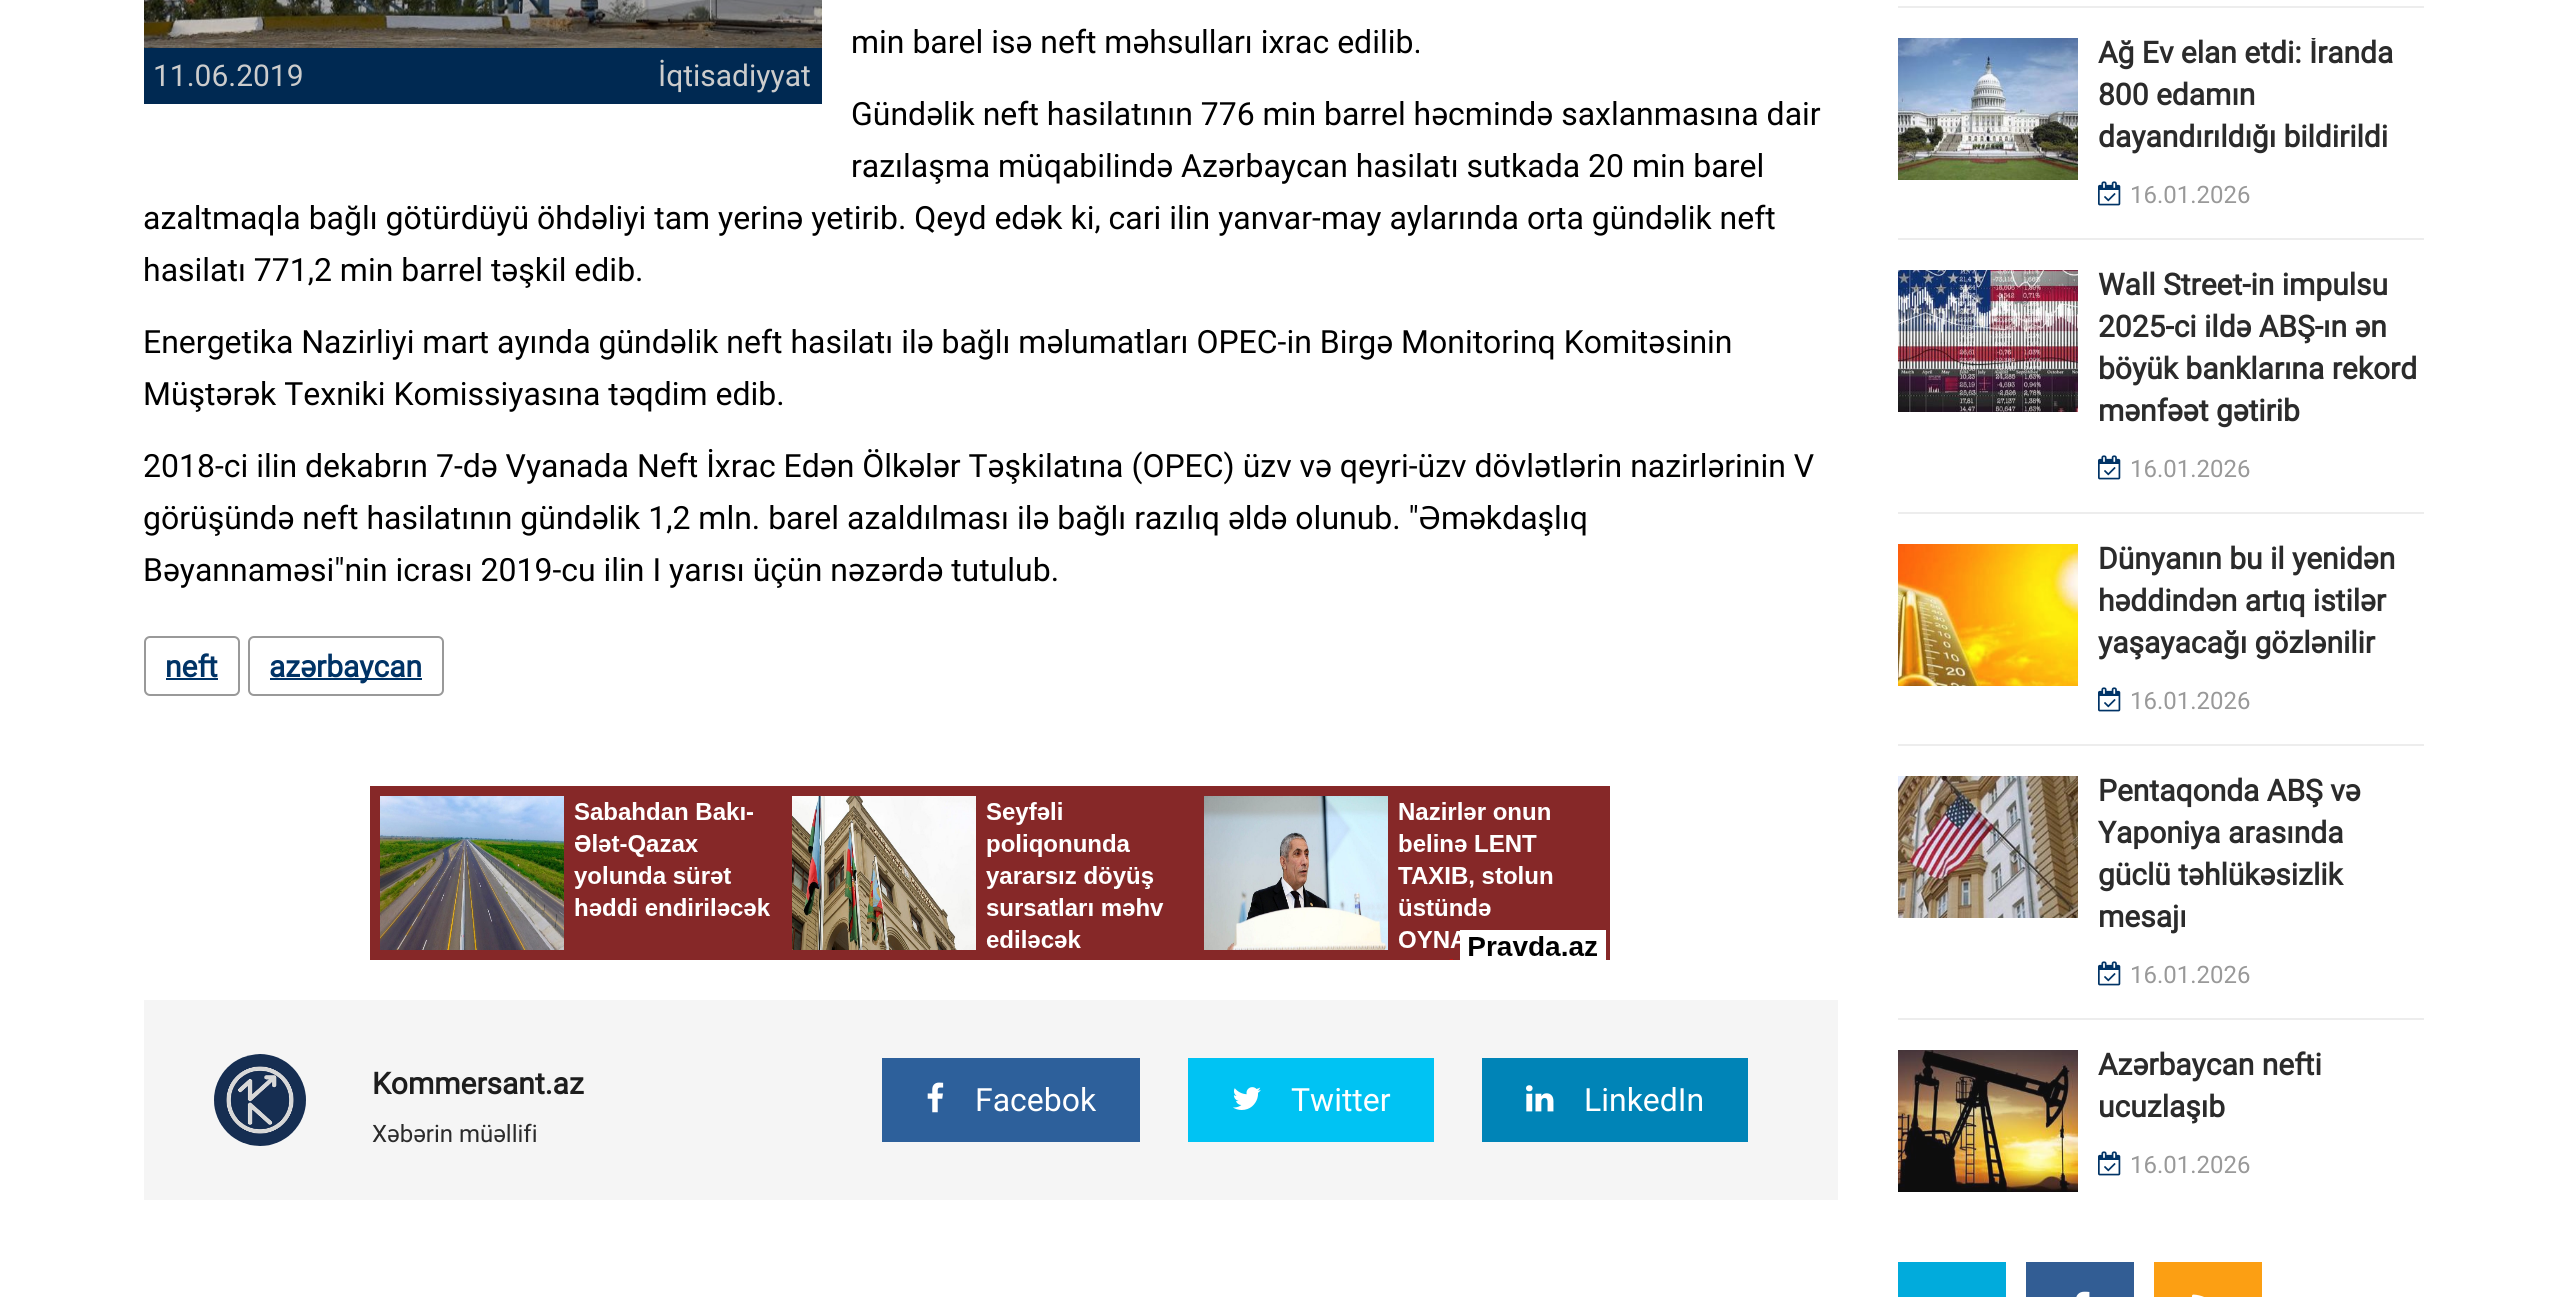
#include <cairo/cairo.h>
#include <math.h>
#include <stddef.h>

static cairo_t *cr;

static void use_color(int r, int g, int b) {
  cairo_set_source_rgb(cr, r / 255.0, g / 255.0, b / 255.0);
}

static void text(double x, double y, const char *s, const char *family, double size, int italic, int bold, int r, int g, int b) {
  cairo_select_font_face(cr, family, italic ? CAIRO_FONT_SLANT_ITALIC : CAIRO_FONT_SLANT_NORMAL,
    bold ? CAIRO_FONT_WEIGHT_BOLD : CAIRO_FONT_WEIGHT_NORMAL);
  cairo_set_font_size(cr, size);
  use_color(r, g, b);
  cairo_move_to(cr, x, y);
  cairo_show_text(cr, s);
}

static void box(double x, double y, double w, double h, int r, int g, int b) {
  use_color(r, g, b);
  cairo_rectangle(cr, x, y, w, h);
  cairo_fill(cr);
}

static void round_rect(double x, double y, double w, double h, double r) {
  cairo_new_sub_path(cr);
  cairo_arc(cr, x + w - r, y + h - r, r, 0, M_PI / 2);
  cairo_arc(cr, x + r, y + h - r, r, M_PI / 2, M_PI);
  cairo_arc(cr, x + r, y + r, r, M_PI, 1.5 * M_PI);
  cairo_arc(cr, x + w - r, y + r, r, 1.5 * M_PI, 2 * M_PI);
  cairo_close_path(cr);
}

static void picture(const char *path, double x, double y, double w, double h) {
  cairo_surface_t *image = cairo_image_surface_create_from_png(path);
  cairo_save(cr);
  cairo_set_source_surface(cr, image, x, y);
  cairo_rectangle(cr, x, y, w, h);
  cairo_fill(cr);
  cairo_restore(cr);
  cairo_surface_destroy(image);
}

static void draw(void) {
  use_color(255, 255, 255);
  cairo_paint(cr);
  box(144, 48, 678, 56, 0, 41, 82);
  picture("img_01.png", 144, 0, 678, 48);
  round_rect(145, 637, 94, 58, 5);
  use_color(153, 153, 153);
  cairo_stroke(cr);
  box(166, 678, 52, 2, 0, 51, 102);
  round_rect(249, 637, 194, 58, 5);
  use_color(153, 153, 153);
  cairo_stroke(cr);
  box(270, 678, 152, 2, 0, 51, 102);
  picture("img_02.png", 370, 786, 1240, 174);
  box(144, 1000, 1694, 200, 245, 245, 245);
  picture("img_03.png", 214, 1054, 92, 92);
  box(882, 1058, 258, 84, 45, 96, 155);
  picture("img_04.png", 927, 1082, 17, 31);
  box(1188, 1058, 246, 84, 0, 195, 243);
  picture("img_05.png", 1233, 1087, 28, 23);
  box(1482, 1058, 266, 84, 0, 132, 183);
  picture("img_06.png", 1526, 1085, 28, 27);
  box(1898, 6, 526, 2, 237, 237, 237);
  box(1898, 238, 526, 2, 237, 237, 237);
  picture("img_07.png", 1898, 38, 180, 142);
  picture("img_08.png", 2098, 181, 23, 25);
  box(1898, 512, 526, 2, 237, 237, 237);
  picture("img_09.png", 1898, 270, 180, 142);
  picture("img_08.png", 2098, 455, 23, 25);
  box(1898, 744, 526, 2, 237, 237, 237);
  picture("img_10.png", 1898, 544, 180, 142);
  picture("img_08.png", 2098, 687, 23, 25);
  box(1898, 1018, 526, 2, 237, 237, 237);
  picture("img_11.png", 1898, 776, 180, 142);
  picture("img_08.png", 2098, 961, 23, 25);
  picture("img_12.png", 1898, 1050, 180, 142);
  picture("img_08.png", 2098, 1151, 23, 25);
  box(1898, 1262, 108, 35, 1, 171, 220);
  box(2026, 1262, 108, 35, 50, 93, 148);
  picture("img_13.png", 2076, 1291, 14, 6);
  box(2154, 1262, 108, 35, 252, 159, 19);
  picture("img_14.png", 2192, 1294, 12, 3);
  text(851, 53, "min barel isə neft məhsulları ixrac edilib.", "Roboto", 32, 0, 0, 0, 0, 0);
  text(153, 86, "11.06.2019", "Roboto", 30, 0, 0, 204, 204, 204);
  text(658, 86, "İqtisadiyyat", "Roboto", 30, 0, 0, 204, 204, 204);
  text(851, 125, "Gündəlik neft hasilatının 776 min barrel həcmində saxlanmasına dair", "Roboto", 32, 0, 0, 0, 0, 0);
  text(851, 177, "razılaşma müqabilində Azərbaycan hasilatı sutkada 20 min barel", "Roboto", 32, 0, 0, 0, 0, 0);
  text(143, 229, "azaltmaqla bağlı götürdüyü öhdəliyi tam yerinə yetirib. Qeyd edək ki, cari ilin yanvar-may aylarında orta gündəlik neft", "Roboto", 32, 0, 0, 0, 0, 0);
  text(143, 281, "hasilatı 771,2 min barrel təşkil edib.", "Roboto", 32, 0, 0, 0, 0, 0);
  text(143, 353, "Energetika Nazirliyi mart ayında gündəlik neft hasilatı ilə bağlı məlumatları OPEC-in Birgə Monitorinq Komitəsinin", "Roboto", 32, 0, 0, 0, 0, 0);
  text(143, 405, "Müştərək Texniki Komissiyasına təqdim edib.", "Roboto", 32, 0, 0, 0, 0, 0);
  text(143, 477, "2018-ci ilin dekabrın 7-də Vyanada Neft İxrac Edən Ölkələr Təşkilatına (OPEC) üzv və qeyri-üzv dövlətlərin nazirlərinin V", "Roboto", 32, 0, 0, 0, 0, 0);
  text(143, 529, "görüşündə neft hasilatının gündəlik 1,2 mln. barel azaldılması ilə bağlı razılıq əldə olunub. \"Əməkdaşlıq", "Roboto", 32, 0, 0, 0, 0, 0);
  text(143, 581, "Bəyannaməsi\"nin icrası 2019-cu ilin I yarısı üçün nəzərdə tutulub.", "Roboto", 32, 0, 0, 0, 0, 0);
  text(165, 677, "neft", "Roboto", 30, 0, 1, 0, 51, 102);
  text(269, 677, "azərbaycan", "Roboto", 30, 0, 1, 0, 51, 102);
  text(372, 1094, "Kommersant.az", "Roboto", 30, 0, 1, 29, 29, 29);
  text(372, 1142, "Xəbərin müəllifi", "Roboto", 24, 0, 0, 43, 43, 43);
  text(975, 1111, "Facebok", "Roboto", 32, 0, 0, 255, 255, 255);
  text(1291, 1111, "Twitter", "Roboto", 32, 0, 0, 255, 255, 255);
  text(1584, 1111, "LinkedIn", "Roboto", 32, 0, 0, 255, 255, 255);
  cairo_save(cr);
  cairo_rectangle(cr, 2078, 38, 346, 170);
  cairo_clip(cr);
  text(2098, 63, "Ağ Ev elan etdi: İranda", "Roboto", 30, 0, 1, 43, 43, 43);
  cairo_restore(cr);
  text(2098, 105, "800 edamın", "Roboto", 30, 0, 1, 43, 43, 43);
  text(2098, 147, "dayandırıldığı bildirildi", "Roboto", 30, 0, 1, 43, 43, 43);
  text(2130, 203, "16.01.2026", "Roboto", 24, 0, 0, 153, 153, 153);
  text(2098, 295, "Wall Street-in impulsu", "Roboto", 30, 0, 1, 43, 43, 43);
  text(2098, 337, "2025-ci ildə ABŞ-ın ən", "Roboto", 30, 0, 1, 43, 43, 43);
  text(2098, 379, "böyük banklarına rekord", "Roboto", 30, 0, 1, 43, 43, 43);
  text(2098, 421, "mənfəət gətirib", "Roboto", 30, 0, 1, 43, 43, 43);
  text(2130, 477, "16.01.2026", "Roboto", 24, 0, 0, 153, 153, 153);
  text(2098, 569, "Dünyanın bu il yenidən", "Roboto", 30, 0, 1, 43, 43, 43);
  text(2098, 611, "həddindən artıq istilər", "Roboto", 30, 0, 1, 43, 43, 43);
  text(2098, 653, "yaşayacağı gözlənilir", "Roboto", 30, 0, 1, 43, 43, 43);
  text(2130, 709, "16.01.2026", "Roboto", 24, 0, 0, 153, 153, 153);
  text(2098, 801, "Pentaqonda ABŞ və", "Roboto", 30, 0, 1, 43, 43, 43);
  text(2098, 843, "Yaponiya arasında", "Roboto", 30, 0, 1, 43, 43, 43);
  text(2098, 885, "güclü təhlükəsizlik", "Roboto", 30, 0, 1, 43, 43, 43);
  text(2098, 927, "mesajı", "Roboto", 30, 0, 1, 43, 43, 43);
  text(2130, 983, "16.01.2026", "Roboto", 24, 0, 0, 153, 153, 153);
  text(2098, 1075, "Azərbaycan nefti", "Roboto", 30, 0, 1, 43, 43, 43);
  text(2098, 1117, "ucuzlaşıb", "Roboto", 30, 0, 1, 43, 43, 43);
  text(2130, 1173, "16.01.2026", "Roboto", 24, 0, 0, 153, 153, 153);
}

int main(void) {
  cairo_surface_t *surface = cairo_image_surface_create(CAIRO_FORMAT_RGB24, 2565, 1297);
  cr = cairo_create(surface);
  cairo_font_options_t *options = cairo_font_options_create();
  cairo_font_options_set_hint_metrics(options, CAIRO_HINT_METRICS_OFF);
  cairo_font_options_set_hint_style(options, CAIRO_HINT_STYLE_NONE);
  cairo_set_font_options(cr, options);
  cairo_set_miter_limit(cr, 4);
  draw();
  cairo_surface_write_to_png(surface, "out.png");
  cairo_font_options_destroy(options);
  cairo_destroy(cr);
  cairo_surface_destroy(surface);
  return 0;
}
